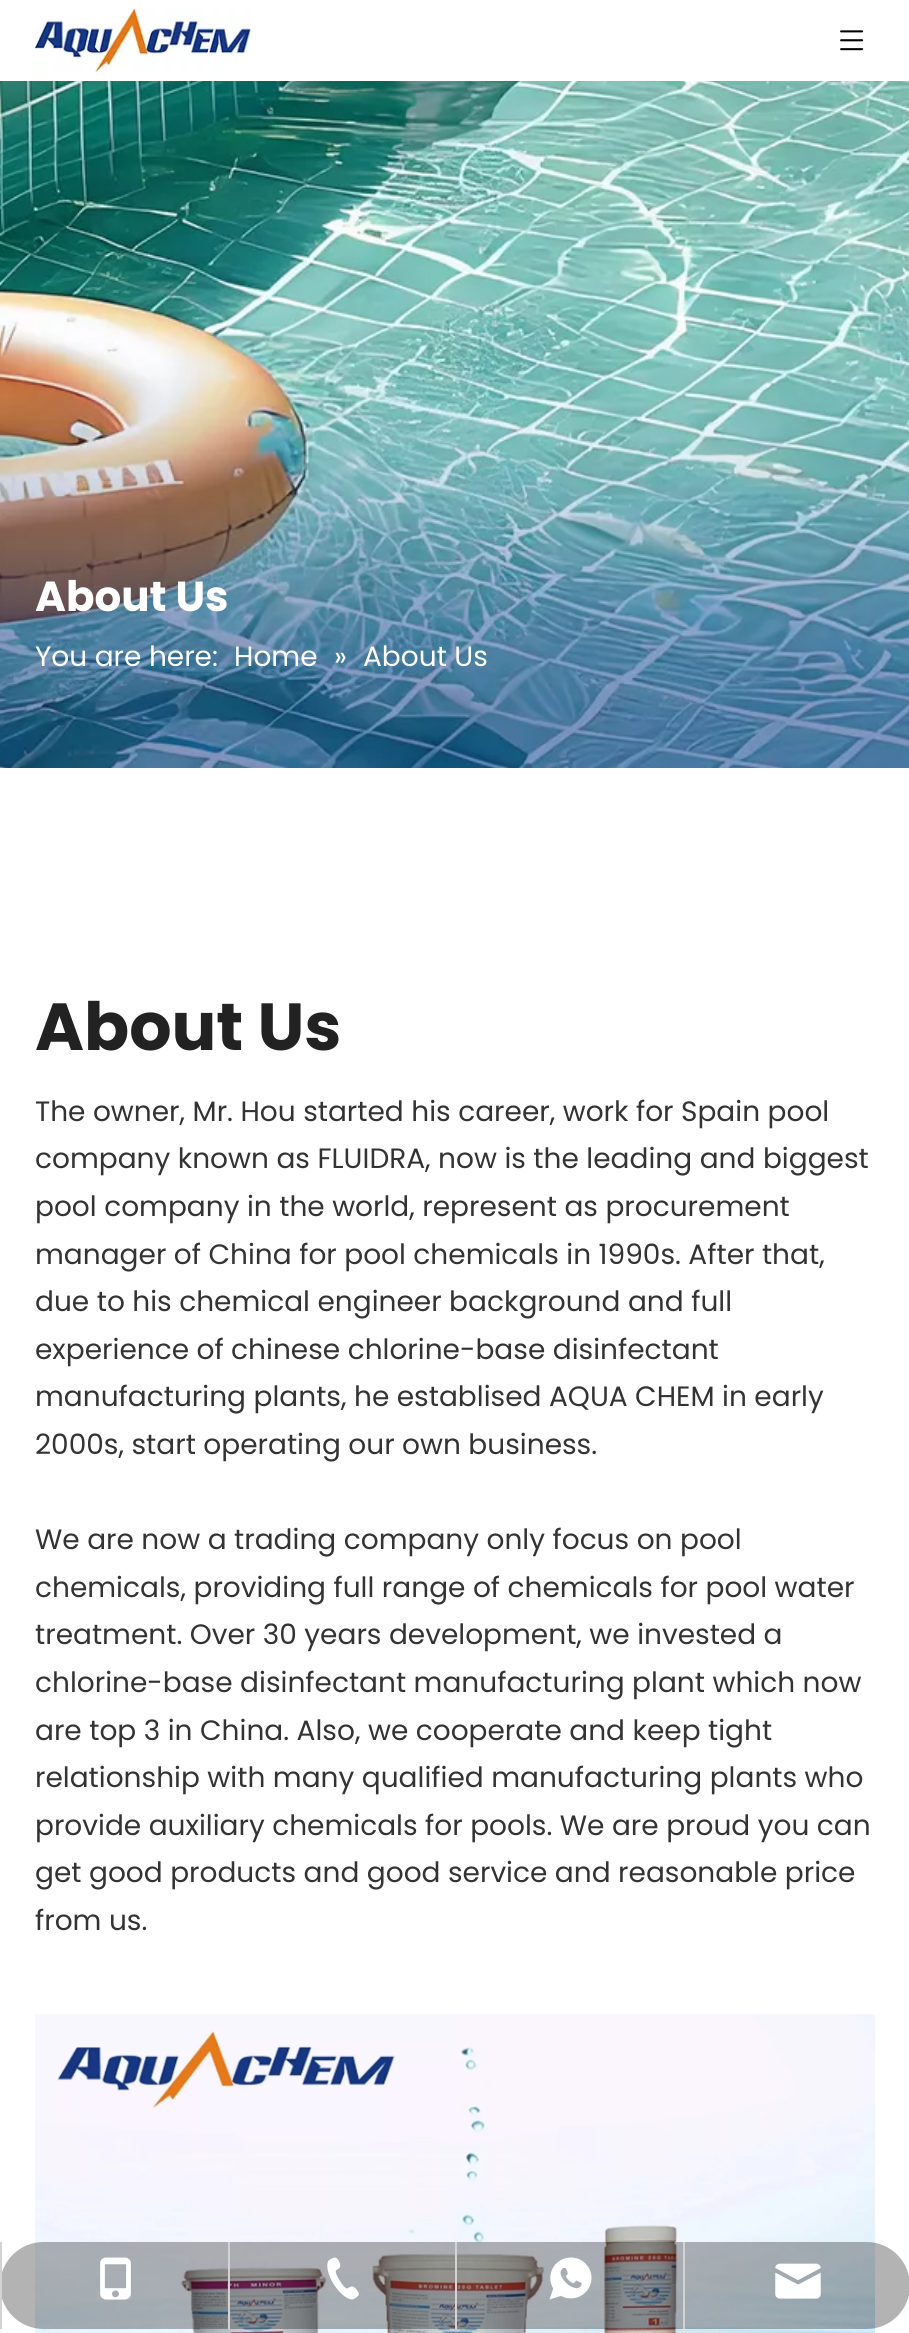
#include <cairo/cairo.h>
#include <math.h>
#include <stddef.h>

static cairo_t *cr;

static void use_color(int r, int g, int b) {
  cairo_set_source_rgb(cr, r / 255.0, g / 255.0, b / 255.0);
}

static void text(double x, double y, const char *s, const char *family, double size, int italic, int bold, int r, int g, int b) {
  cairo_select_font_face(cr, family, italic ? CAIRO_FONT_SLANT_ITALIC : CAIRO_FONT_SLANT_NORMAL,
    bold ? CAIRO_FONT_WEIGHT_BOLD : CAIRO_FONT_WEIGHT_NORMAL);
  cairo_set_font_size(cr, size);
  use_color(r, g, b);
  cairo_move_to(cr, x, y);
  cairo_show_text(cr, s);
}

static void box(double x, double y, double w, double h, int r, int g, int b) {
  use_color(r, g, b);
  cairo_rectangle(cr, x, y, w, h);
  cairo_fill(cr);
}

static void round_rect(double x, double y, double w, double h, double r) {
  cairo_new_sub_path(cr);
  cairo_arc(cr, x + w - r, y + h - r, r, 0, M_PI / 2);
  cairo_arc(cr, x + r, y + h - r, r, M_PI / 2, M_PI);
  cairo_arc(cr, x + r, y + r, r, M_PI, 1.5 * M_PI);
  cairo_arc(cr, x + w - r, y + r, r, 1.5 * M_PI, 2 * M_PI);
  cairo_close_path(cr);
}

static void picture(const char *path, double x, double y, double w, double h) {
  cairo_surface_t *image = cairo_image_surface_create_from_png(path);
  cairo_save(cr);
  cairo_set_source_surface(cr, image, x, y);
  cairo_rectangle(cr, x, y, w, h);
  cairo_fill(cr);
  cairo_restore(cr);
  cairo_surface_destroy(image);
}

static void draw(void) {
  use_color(255, 255, 255);
  cairo_paint(cr);
  picture("img_01.png", 35, 8, 216, 64);
  picture("img_02.png", 840, 30, 24, 21);
  picture("img_03.png", 0, 81, 909, 687);
  picture("img_04.png", 35, 2014, 840, 319);
  cairo_set_source_rgba(cr, 0, 0, 0, 0.3);
  round_rect(0, 2242, 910, 87, 43.5);
  cairo_fill(cr);
  box(0, 2242, 2, 87, 211, 211, 211);
  picture("img_05.png", 100, 2257, 31, 43);
  box(228, 2242, 2, 87, 211, 211, 211);
  picture("img_06.png", 327, 2257, 32, 43);
  box(455, 2242, 2, 87, 211, 211, 211);
  picture("img_07.png", 549, 2257, 43, 43);
  box(683, 2242, 2, 87, 211, 211, 211);
  picture("img_08.png", 775, 2263, 46, 36);
  text(35, 611, "About Us", "Poppins", 42, 0, 1, 255, 255, 255);
  text(35, 666, "You are here:", "Poppins", 28, 0, 0, 255, 255, 255);
  text(234, 666, "Home", "Poppins", 28, 0, 0, 255, 255, 255);
  text(334, 666, "»", "Poppins", 28, 0, 0, 255, 255, 255);
  text(363, 666, "About Us", "Poppins", 28, 0, 0, 255, 255, 255);
  text(35, 1050, "About Us", "Poppins", 66.5, 0, 1, 34, 34, 34);
  text(35, 1121, "The owner, Mr. Hou started his career, work for Spain pool", "Poppins", 28, 0, 0, 51, 51, 51);
  text(35, 1168, "company known as FLUIDRA, now is the leading and biggest", "Poppins", 28, 0, 0, 51, 51, 51);
  text(35, 1216, "pool company in the world, represent as procurement", "Poppins", 28, 0, 0, 51, 51, 51);
  text(35, 1264, "manager of China for pool chemicals in 1990s. After that,", "Poppins", 28, 0, 0, 51, 51, 51);
  text(35, 1311, "due to his chemical engineer background and full", "Poppins", 28, 0, 0, 51, 51, 51);
  text(35, 1359, "experience of chinese chlorine-base disinfectant", "Poppins", 28, 0, 0, 51, 51, 51);
  text(35, 1406, "manufacturing plants, he establised AQUA CHEM in early", "Poppins", 28, 0, 0, 51, 51, 51);
  text(35, 1454, "2000s, start operating our own business.", "Poppins", 28, 0, 0, 51, 51, 51);
  text(35, 1549, "We are now a trading company only focus on pool", "Poppins", 28, 0, 0, 51, 51, 51);
  text(35, 1597, "chemicals, providing full range of chemicals for pool water", "Poppins", 28, 0, 0, 51, 51, 51);
  text(35, 1644, "treatment. Over 30 years development, we invested a", "Poppins", 28, 0, 0, 51, 51, 51);
  text(35, 1692, "chlorine-base disinfectant manufacturing plant which now", "Poppins", 28, 0, 0, 51, 51, 51);
  text(35, 1740, "are top 3 in China. Also, we cooperate and keep tight", "Poppins", 28, 0, 0, 51, 51, 51);
  text(35, 1787, "relationship with many qualified manufacturing plants who", "Poppins", 28, 0, 0, 51, 51, 51);
  text(35, 1835, "provide auxiliary chemicals for pools. We are proud you can", "Poppins", 28, 0, 0, 51, 51, 51);
  text(35, 1882, "get good products and good service and reasonable price", "Poppins", 28, 0, 0, 51, 51, 51);
  text(35, 1930, "from us.", "Poppins", 28, 0, 0, 51, 51, 51);
}

int main(void) {
  cairo_surface_t *surface = cairo_image_surface_create(CAIRO_FORMAT_RGB24, 909, 2333);
  cr = cairo_create(surface);
  cairo_font_options_t *options = cairo_font_options_create();
  cairo_font_options_set_hint_metrics(options, CAIRO_HINT_METRICS_OFF);
  cairo_font_options_set_hint_style(options, CAIRO_HINT_STYLE_NONE);
  cairo_set_font_options(cr, options);
  cairo_set_miter_limit(cr, 4);
  draw();
  cairo_surface_write_to_png(surface, "out.png");
  cairo_font_options_destroy(options);
  cairo_destroy(cr);
  cairo_surface_destroy(surface);
  return 0;
}
